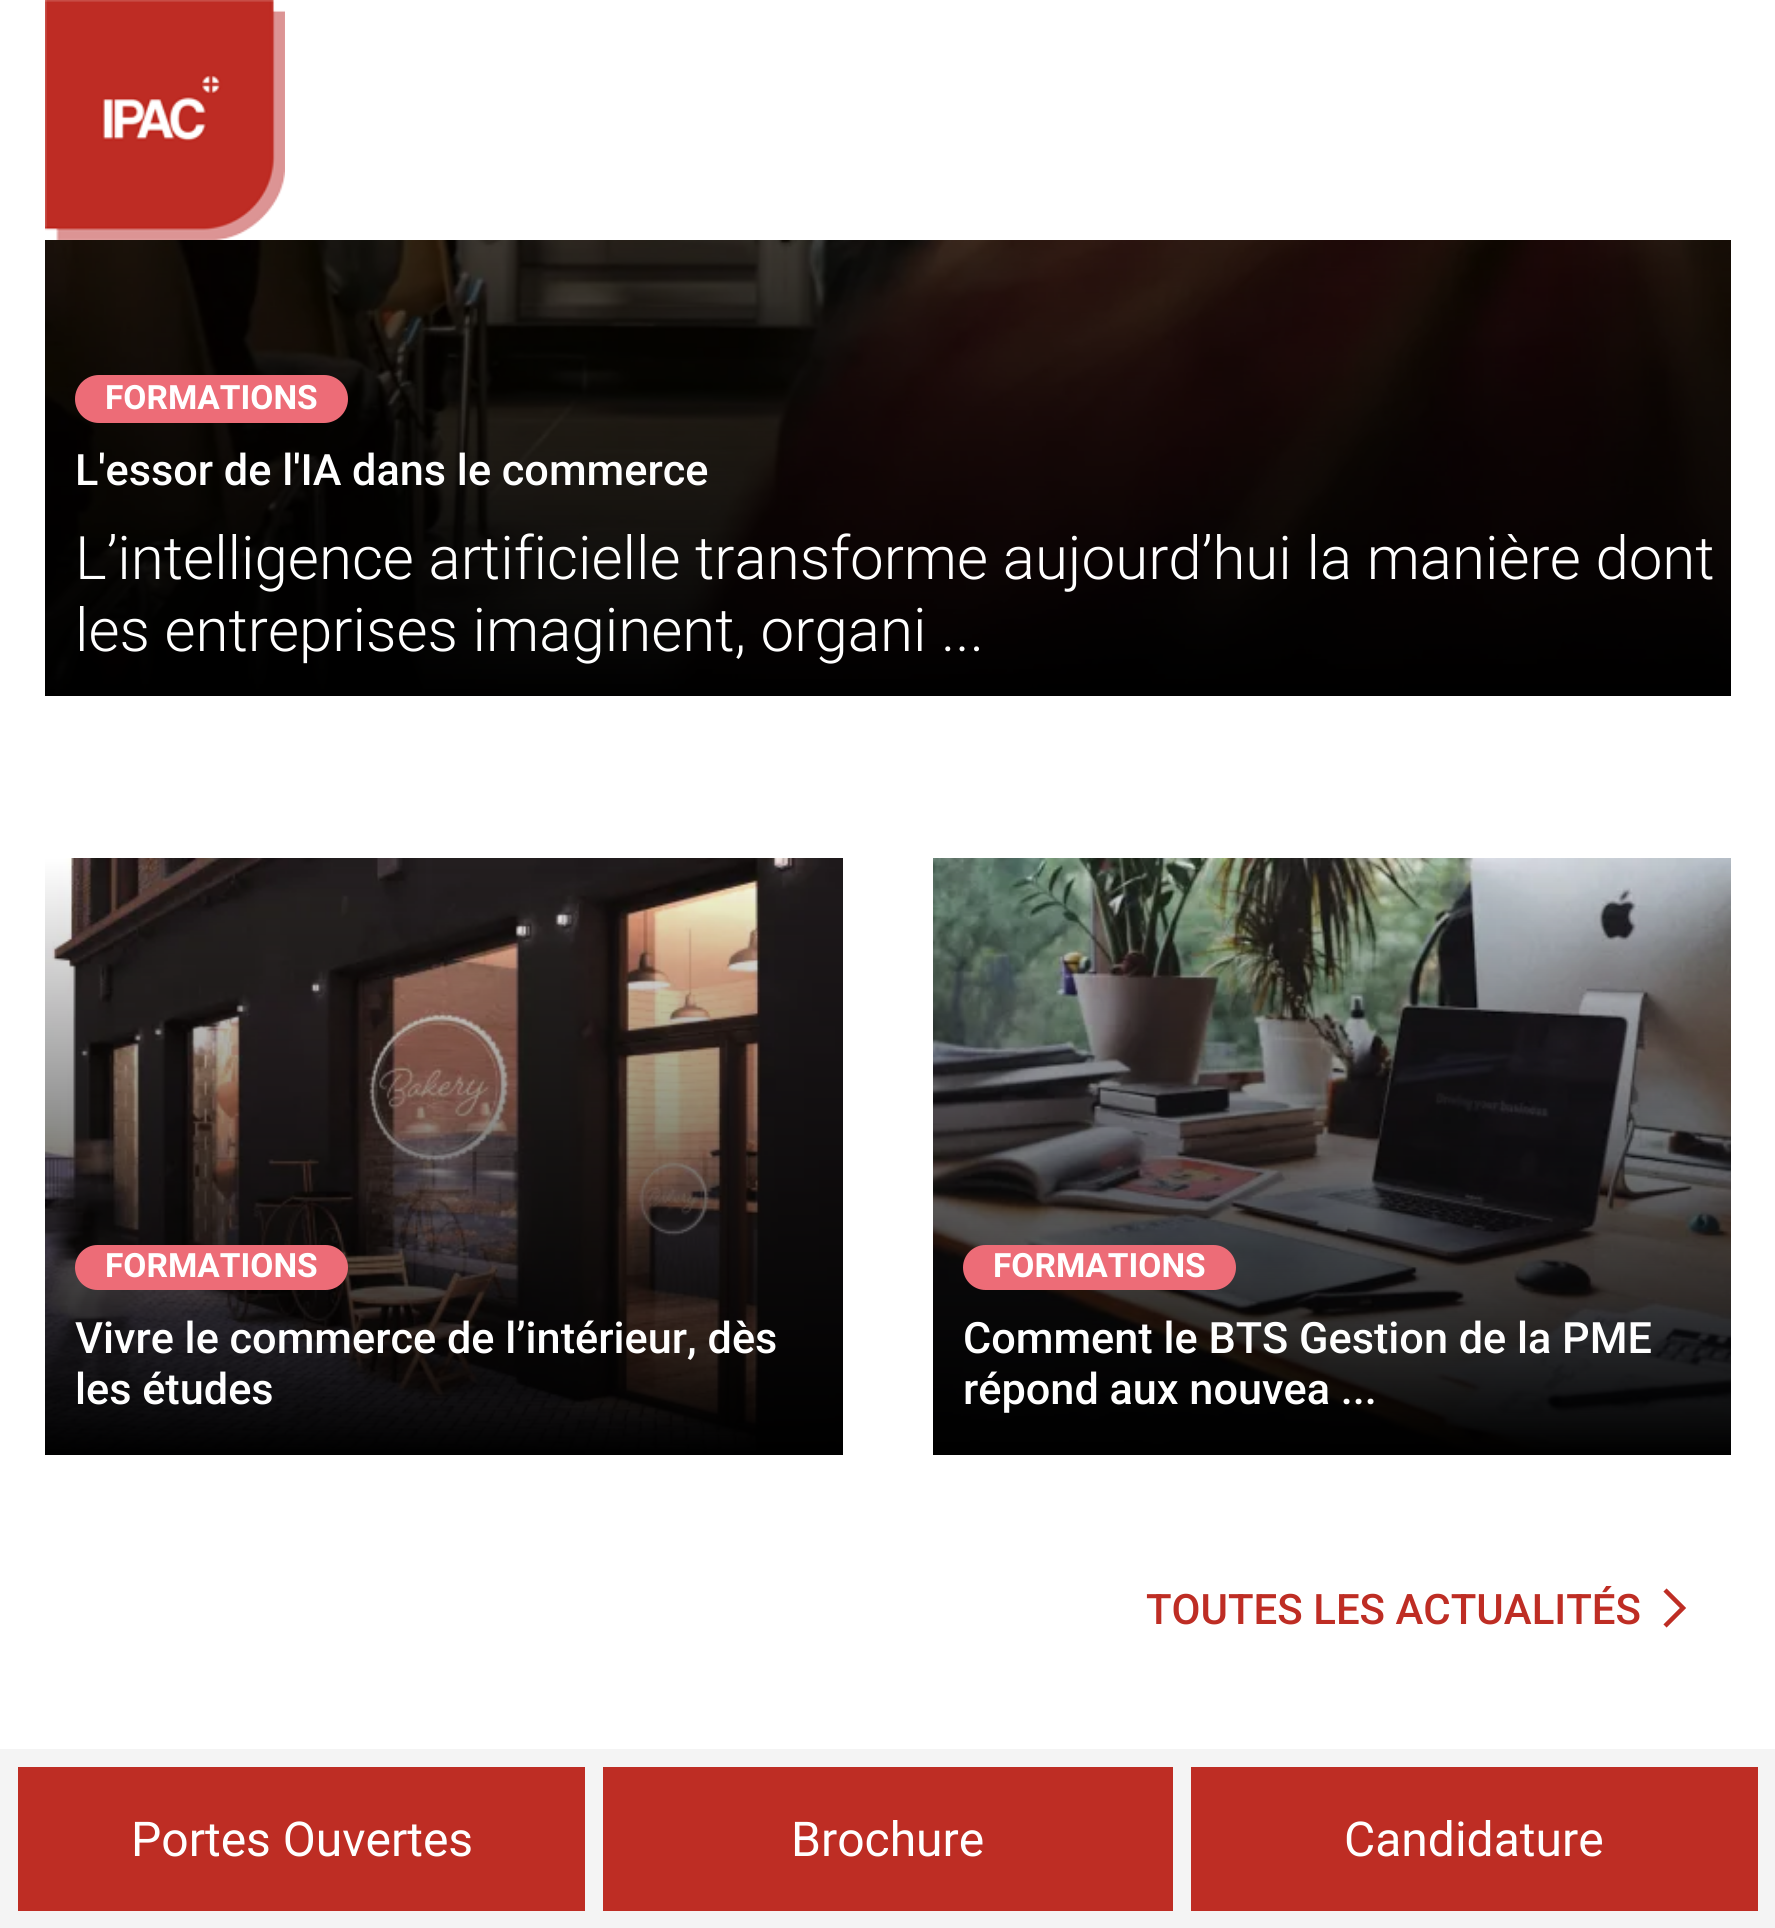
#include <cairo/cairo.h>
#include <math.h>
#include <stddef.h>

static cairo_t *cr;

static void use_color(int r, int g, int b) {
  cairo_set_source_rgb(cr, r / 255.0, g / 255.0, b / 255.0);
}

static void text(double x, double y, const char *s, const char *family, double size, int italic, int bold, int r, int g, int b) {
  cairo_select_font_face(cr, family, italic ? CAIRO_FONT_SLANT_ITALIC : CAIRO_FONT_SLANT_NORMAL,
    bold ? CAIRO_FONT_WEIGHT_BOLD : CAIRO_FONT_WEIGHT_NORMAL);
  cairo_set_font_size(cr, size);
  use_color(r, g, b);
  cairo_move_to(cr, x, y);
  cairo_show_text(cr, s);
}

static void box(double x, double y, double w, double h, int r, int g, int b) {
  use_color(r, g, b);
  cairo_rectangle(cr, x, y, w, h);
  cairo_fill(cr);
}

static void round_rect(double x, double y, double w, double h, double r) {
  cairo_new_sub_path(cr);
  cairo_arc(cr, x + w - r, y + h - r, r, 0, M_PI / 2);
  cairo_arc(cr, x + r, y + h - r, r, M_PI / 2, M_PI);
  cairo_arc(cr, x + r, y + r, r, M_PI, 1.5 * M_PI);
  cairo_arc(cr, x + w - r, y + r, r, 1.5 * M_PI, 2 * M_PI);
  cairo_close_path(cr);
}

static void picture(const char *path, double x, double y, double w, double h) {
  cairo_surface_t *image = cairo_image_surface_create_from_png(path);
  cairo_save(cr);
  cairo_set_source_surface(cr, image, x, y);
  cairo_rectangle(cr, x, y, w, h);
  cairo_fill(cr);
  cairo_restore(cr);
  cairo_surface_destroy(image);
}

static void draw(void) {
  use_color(255, 255, 255);
  cairo_paint(cr);
  picture("img_01.png", 45, 0, 240, 240);
  picture("img_02.png", 45, 240, 1686, 456);
  use_color(237, 108, 119);
  round_rect(75, 375, 273, 48, 24);
  cairo_fill(cr);
  picture("img_03.png", 45, 858, 798, 597);
  round_rect(75, 1245, 273, 45, 22.5);
  cairo_fill(cr);
  picture("img_04.png", 933, 858, 798, 597);
  round_rect(963, 1245, 273, 45, 22.5);
  cairo_fill(cr);
  cairo_new_path(cr);
  cairo_move_to(cr, 1665, 1590);
  cairo_line_to(cr, 1683, 1608);
  cairo_line_to(cr, 1665, 1626);
  use_color(190, 45, 36);
  cairo_set_line_width(cr, 4.5);
  cairo_stroke(cr);
  box(0, 1749, 1775, 179, 244, 244, 244);
  box(18, 1767, 567, 144, 190, 45, 36);
  box(603, 1767, 570, 144, 190, 45, 36);
  box(1191, 1767, 567, 144, 190, 45, 36);
  text(105, 409, "FORMATIONS", "Roboto", 33.5, 0, 1, 255, 255, 255);
  text(75, 485, "L'essor de l'IA dans le commerce", "Roboto Medium", 43.25, 0, 0, 255, 255, 255);
  text(75, 579, "L’intelligence artificielle transforme aujourd’hui la manière dont", "Roboto Light", 60, 0, 0, 255, 255, 255);
  text(75, 651, "les entreprises imaginent, organi ...", "Roboto Light", 60, 0, 0, 255, 255, 255);
  text(105, 1277, "FORMATIONS", "Roboto", 33.5, 0, 1, 255, 255, 255);
  text(75, 1353, "Vivre le commerce de l’intérieur, dès", "Roboto Medium", 43.25, 0, 0, 255, 255, 255);
  text(75, 1404, "les études", "Roboto Medium", 43.25, 0, 0, 255, 255, 255);
  text(993, 1277, "FORMATIONS", "Roboto", 33.5, 0, 1, 255, 255, 255);
  text(963, 1353, "Comment le BTS Gestion de la PME", "Roboto Medium", 43.25, 0, 0, 255, 255, 255);
  text(963, 1404, "répond aux nouvea ...", "Roboto Medium", 43.25, 0, 0, 255, 255, 255);
  text(1146, 1624, "TOUTES LES ACTUALITÉS", "Roboto Medium", 42, 0, 0, 190, 45, 36);
  text(131, 1856, "Portes Ouvertes", "Roboto", 48, 0, 0, 255, 255, 255);
  text(791, 1856, "Brochure", "Roboto", 48, 0, 0, 255, 255, 255);
  text(1344, 1856, "Candidature", "Roboto", 48, 0, 0, 255, 255, 255);
}

int main(void) {
  cairo_surface_t *surface = cairo_image_surface_create(CAIRO_FORMAT_RGB24, 1775, 1928);
  cr = cairo_create(surface);
  cairo_font_options_t *options = cairo_font_options_create();
  cairo_font_options_set_hint_metrics(options, CAIRO_HINT_METRICS_OFF);
  cairo_font_options_set_hint_style(options, CAIRO_HINT_STYLE_NONE);
  cairo_set_font_options(cr, options);
  cairo_set_miter_limit(cr, 4);
  draw();
  cairo_surface_write_to_png(surface, "out.png");
  cairo_font_options_destroy(options);
  cairo_destroy(cr);
  cairo_surface_destroy(surface);
  return 0;
}
